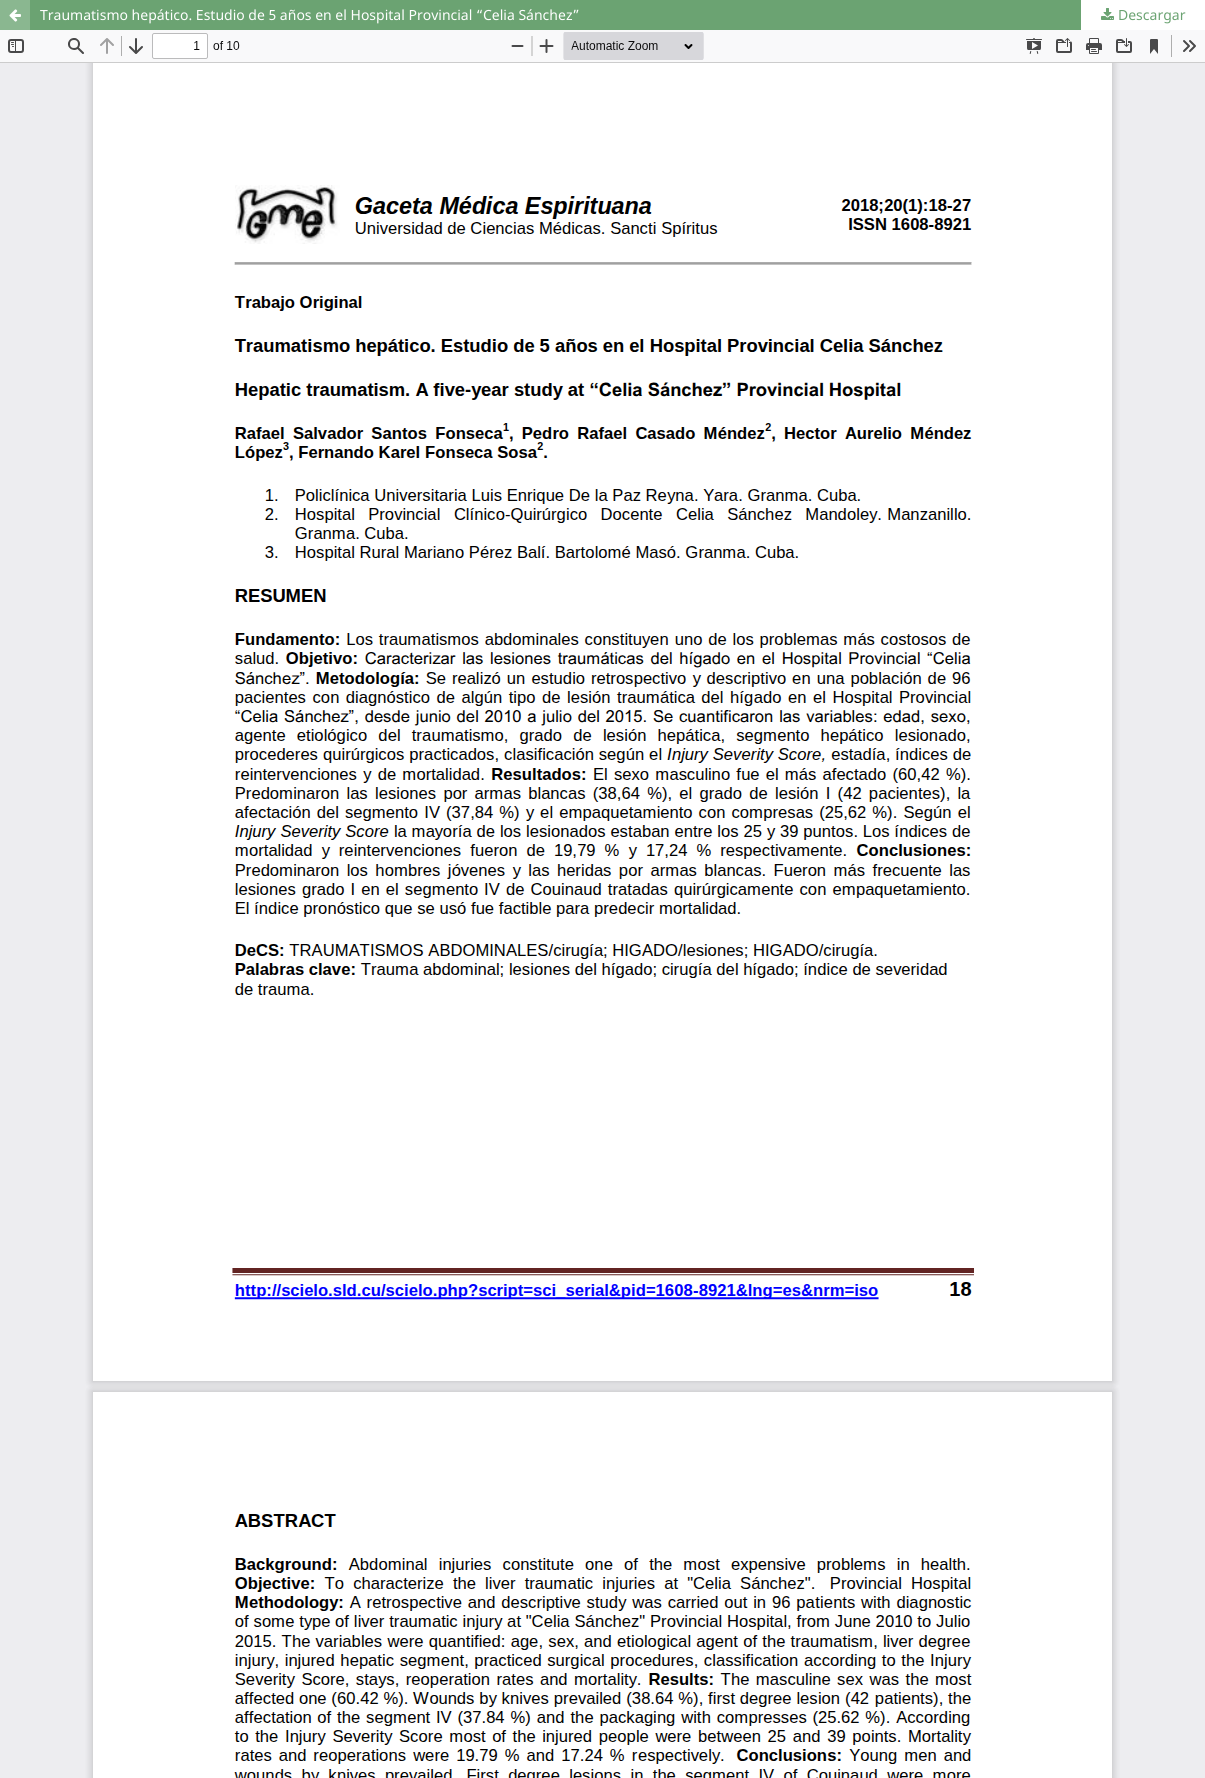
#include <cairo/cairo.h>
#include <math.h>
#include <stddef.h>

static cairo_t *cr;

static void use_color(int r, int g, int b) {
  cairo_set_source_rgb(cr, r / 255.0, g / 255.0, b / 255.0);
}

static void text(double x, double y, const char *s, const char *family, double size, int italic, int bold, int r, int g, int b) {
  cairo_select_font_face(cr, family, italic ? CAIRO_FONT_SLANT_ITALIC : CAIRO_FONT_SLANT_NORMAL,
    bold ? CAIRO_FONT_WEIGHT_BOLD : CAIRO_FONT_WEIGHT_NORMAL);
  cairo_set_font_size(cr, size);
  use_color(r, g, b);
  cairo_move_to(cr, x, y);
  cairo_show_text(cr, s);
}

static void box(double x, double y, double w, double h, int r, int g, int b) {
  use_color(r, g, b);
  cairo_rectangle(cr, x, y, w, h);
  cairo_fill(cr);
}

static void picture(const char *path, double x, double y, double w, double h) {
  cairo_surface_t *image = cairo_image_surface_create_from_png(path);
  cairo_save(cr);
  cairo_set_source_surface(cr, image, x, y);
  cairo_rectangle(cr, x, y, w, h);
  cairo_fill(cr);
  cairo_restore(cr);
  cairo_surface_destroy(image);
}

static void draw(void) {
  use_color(255, 255, 255);
  cairo_paint(cr);
  box(30, 0, 1051, 30, 107, 163, 114);
  box(0, 0, 30, 30, 138, 183, 144);
  picture("img_01.png", 9, 9, 12, 13);
  picture("img_02.png", 1101, 8, 13, 12);
  picture("img_03.png", 0, 30, 1205, 1748);
  text(40, 20, "Traumatismo hepático. Estudio de 5 años en el Hospital Provincial “Celia Sánchez”", "Noto Sans", 14, 0, 0, 255, 255, 255);
  text(1118, 20, "Descargar", "Noto Sans", 14, 0, 0, 107, 163, 114);
}

int main(void) {
  cairo_surface_t *surface = cairo_image_surface_create(CAIRO_FORMAT_RGB24, 1205, 1778);
  cr = cairo_create(surface);
  cairo_font_options_t *options = cairo_font_options_create();
  cairo_font_options_set_hint_metrics(options, CAIRO_HINT_METRICS_OFF);
  cairo_font_options_set_hint_style(options, CAIRO_HINT_STYLE_NONE);
  cairo_set_font_options(cr, options);
  cairo_set_miter_limit(cr, 4);
  draw();
  cairo_surface_write_to_png(surface, "out.png");
  cairo_font_options_destroy(options);
  cairo_destroy(cr);
  cairo_surface_destroy(surface);
  return 0;
}
